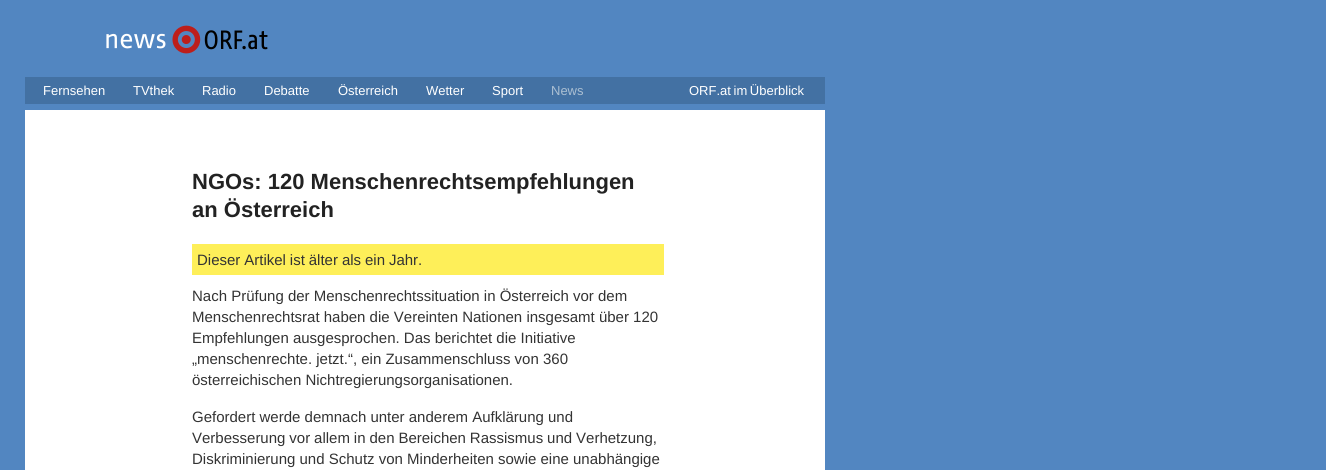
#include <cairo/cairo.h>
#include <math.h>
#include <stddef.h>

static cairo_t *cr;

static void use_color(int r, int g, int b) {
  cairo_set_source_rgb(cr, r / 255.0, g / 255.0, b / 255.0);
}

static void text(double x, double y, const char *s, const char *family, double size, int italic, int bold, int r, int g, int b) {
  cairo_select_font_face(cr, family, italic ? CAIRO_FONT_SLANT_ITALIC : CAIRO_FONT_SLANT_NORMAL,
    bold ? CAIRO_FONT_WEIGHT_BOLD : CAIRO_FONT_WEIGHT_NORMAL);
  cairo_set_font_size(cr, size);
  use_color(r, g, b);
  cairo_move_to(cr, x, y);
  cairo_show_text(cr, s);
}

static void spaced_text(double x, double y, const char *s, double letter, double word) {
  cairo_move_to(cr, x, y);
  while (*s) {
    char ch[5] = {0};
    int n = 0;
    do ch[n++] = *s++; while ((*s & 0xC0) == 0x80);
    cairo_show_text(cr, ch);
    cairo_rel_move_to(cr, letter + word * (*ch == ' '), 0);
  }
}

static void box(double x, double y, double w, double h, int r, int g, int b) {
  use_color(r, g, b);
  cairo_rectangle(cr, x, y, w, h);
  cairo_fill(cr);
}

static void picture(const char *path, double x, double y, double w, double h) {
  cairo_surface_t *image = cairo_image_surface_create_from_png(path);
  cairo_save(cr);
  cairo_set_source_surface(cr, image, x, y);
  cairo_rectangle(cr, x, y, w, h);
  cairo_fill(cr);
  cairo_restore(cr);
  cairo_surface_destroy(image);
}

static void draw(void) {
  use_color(82, 134, 193);
  cairo_paint(cr);
  picture("img_01.png", 106, 33, 60, 16);
  picture("img_02.png", 172, 25, 96, 29);
  box(25, 77, 800, 27, 67, 113, 163);
  box(25, 110, 800, 360, 255, 255, 255);
  box(192, 244, 472, 31, 254, 239, 89);
  text(43, 95, "Fernsehen", "Liberation Sans", 13, 0, 0, 255, 255, 255);
  text(133, 95, "TVthek", "Liberation Sans", 13, 0, 0, 255, 255, 255);
  text(202, 95, "Radio", "Liberation Sans", 13, 0, 0, 255, 255, 255);
  text(264, 95, "Debatte", "Liberation Sans", 13, 0, 0, 255, 255, 255);
  text(338, 95, "Österreich", "Liberation Sans", 13, 0, 0, 255, 255, 255);
  text(426, 95, "Wetter", "Liberation Sans", 13, 0, 0, 255, 255, 255);
  text(492, 95, "Sport", "Liberation Sans", 13, 0, 0, 255, 255, 255);
  text(551, 95, "News", "Liberation Sans", 13, 0, 0, 171, 191, 210);
  use_color(255, 255, 255);
  spaced_text(689, 95, "ORF.at im Überblick", 0, -1);
  text(192, 189, "NGOs: 120 Menschenrechtsempfehlungen", "Liberation Sans", 22, 0, 1, 34, 34, 34);
  text(192, 217, "an Österreich", "Liberation Sans", 22, 0, 1, 34, 34, 34);
  cairo_select_font_face(cr, "Liberation Sans", CAIRO_FONT_SLANT_NORMAL, CAIRO_FONT_WEIGHT_NORMAL);
  cairo_set_font_size(cr, 15);
  use_color(51, 51, 51);
  spaced_text(197, 265, "Dieser Artikel ist älter als ein Jahr.", 0, -0.25);
  text(192, 301, "Nach Prüfung der Menschenrechtssituation in Österreich vor dem", "Liberation Sans", 15, 0, 0, 51, 51, 51);
  text(192, 322, "Menschenrechtsrat haben die Vereinten Nationen insgesamt über 120", "Liberation Sans", 15, 0, 0, 51, 51, 51);
  text(192, 343, "Empfehlungen ausgesprochen. Das berichtet die Initiative", "Liberation Sans", 15, 0, 0, 51, 51, 51);
  text(192, 364, "„menschenrechte. jetzt.“, ein Zusammenschluss von 360", "Liberation Sans", 15, 0, 0, 51, 51, 51);
  text(192, 385, "österreichischen Nichtregierungsorganisationen.", "Liberation Sans", 15, 0, 0, 51, 51, 51);
  text(192, 422, "Gefordert werde demnach unter anderem Aufklärung und", "Liberation Sans", 15, 0, 0, 51, 51, 51);
  spaced_text(192, 443, "Verbesserung vor allem in den Bereichen Rassismus und Verhetzung,", 0, -0.25);
  text(192, 464, "Diskriminierung und Schutz von Minderheiten sowie eine unabhängige", "Liberation Sans", 15, 0, 0, 51, 51, 51);
}

int main(void) {
  cairo_surface_t *surface = cairo_image_surface_create(CAIRO_FORMAT_RGB24, 1326, 470);
  cr = cairo_create(surface);
  cairo_font_options_t *options = cairo_font_options_create();
  cairo_font_options_set_hint_metrics(options, CAIRO_HINT_METRICS_OFF);
  cairo_font_options_set_hint_style(options, CAIRO_HINT_STYLE_NONE);
  cairo_set_font_options(cr, options);
  cairo_set_miter_limit(cr, 4);
  draw();
  cairo_surface_write_to_png(surface, "out.png");
  cairo_font_options_destroy(options);
  cairo_destroy(cr);
  cairo_surface_destroy(surface);
  return 0;
}
